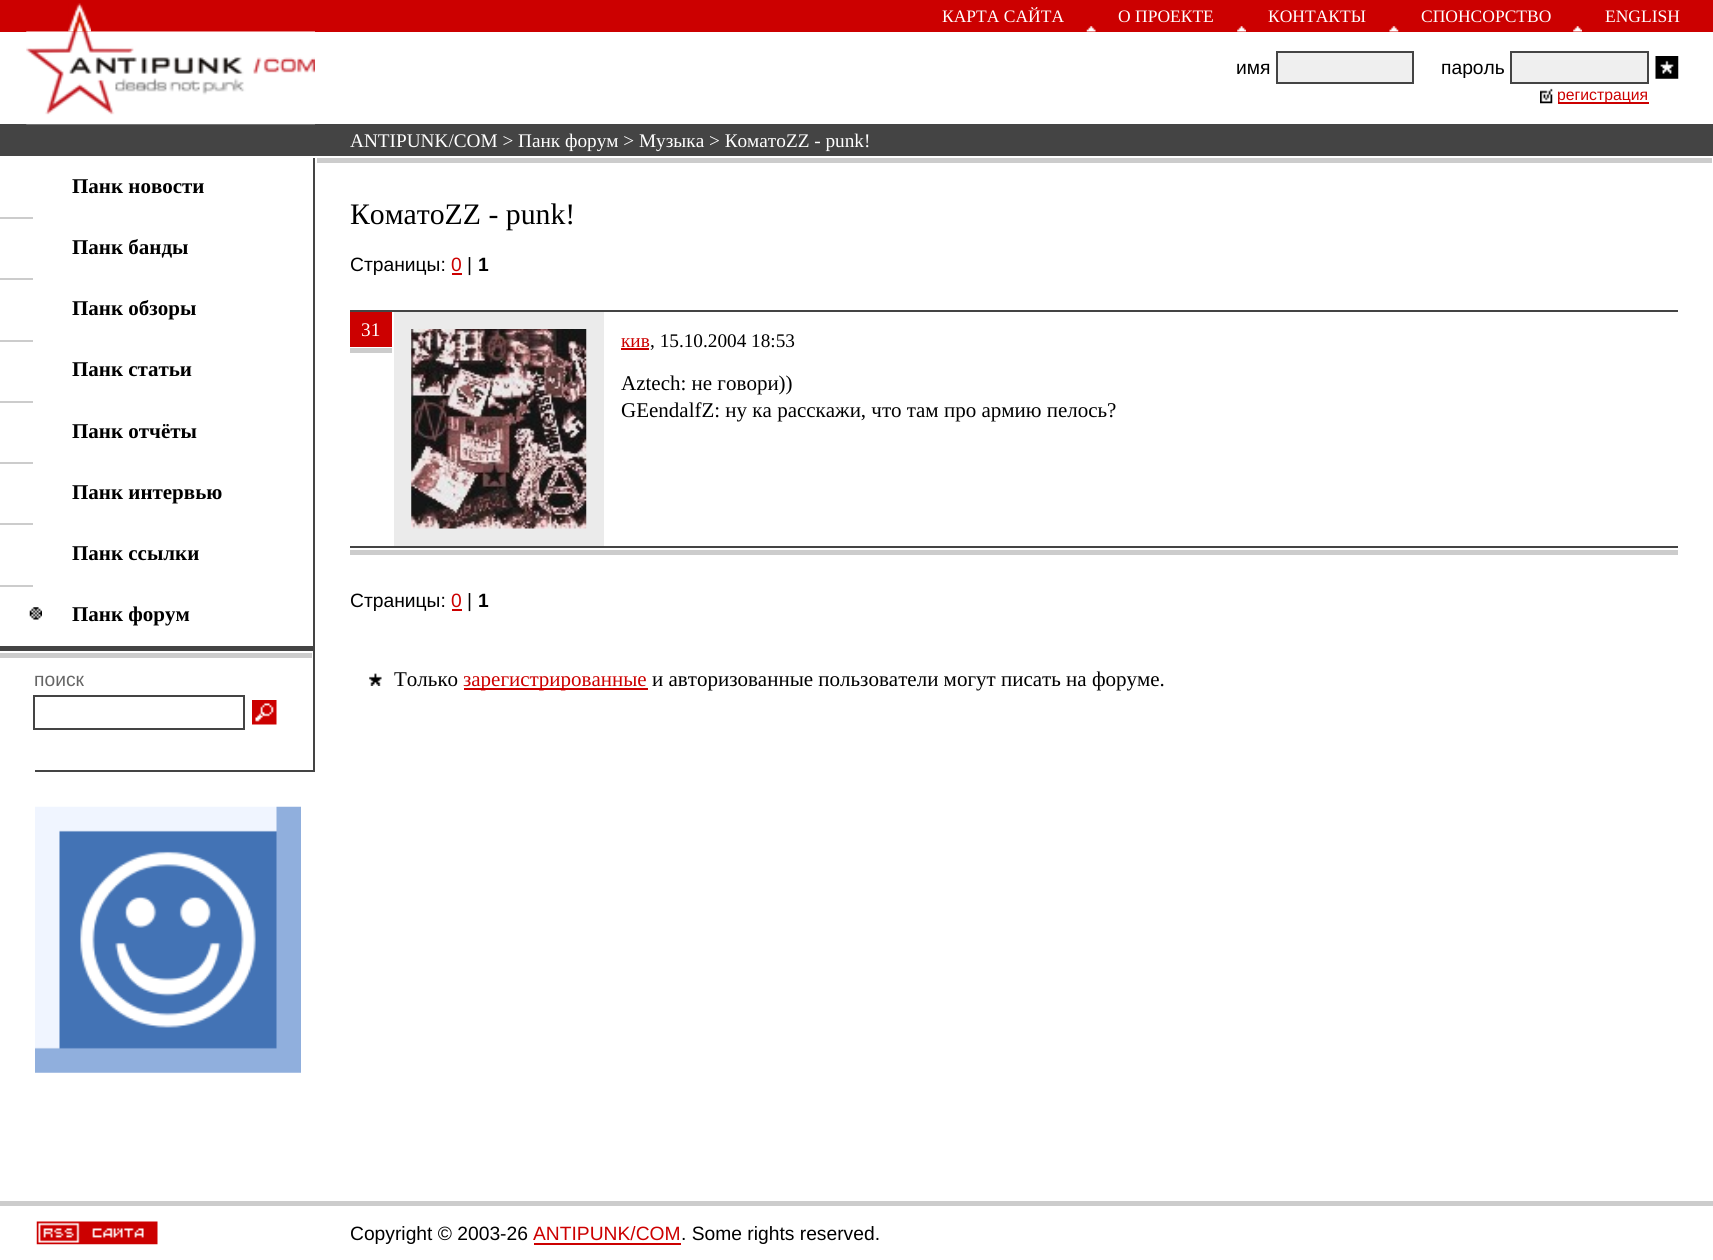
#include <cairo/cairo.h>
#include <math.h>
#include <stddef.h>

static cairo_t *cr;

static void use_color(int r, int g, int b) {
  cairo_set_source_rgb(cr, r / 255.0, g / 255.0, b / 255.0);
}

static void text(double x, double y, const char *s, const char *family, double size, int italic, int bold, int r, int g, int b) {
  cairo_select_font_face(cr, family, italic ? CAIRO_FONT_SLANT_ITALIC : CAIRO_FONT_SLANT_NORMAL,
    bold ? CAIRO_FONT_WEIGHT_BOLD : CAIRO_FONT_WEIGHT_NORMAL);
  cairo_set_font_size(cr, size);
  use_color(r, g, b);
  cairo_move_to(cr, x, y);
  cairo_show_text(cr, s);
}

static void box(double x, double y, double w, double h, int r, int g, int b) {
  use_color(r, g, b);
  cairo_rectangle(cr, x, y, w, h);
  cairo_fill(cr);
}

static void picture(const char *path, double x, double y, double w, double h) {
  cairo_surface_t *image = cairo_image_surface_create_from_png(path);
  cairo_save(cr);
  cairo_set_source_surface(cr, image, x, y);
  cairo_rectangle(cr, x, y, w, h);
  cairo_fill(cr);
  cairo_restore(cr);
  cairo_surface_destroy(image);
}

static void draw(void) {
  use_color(255, 255, 255);
  cairo_paint(cr);
  box(0, 0, 1713, 32, 204, 0, 0);
  picture("img_01.png", 68, 3, 23, 29);
  picture("img_02.png", 1086, 26, 10, 6);
  picture("img_03.png", 1237, 26, 9, 6);
  picture("img_04.png", 1389, 26, 10, 6);
  picture("img_05.png", 1573, 26, 9, 6);
  box(0, 124, 1713, 32, 68, 68, 68);
  picture("img_06.png", 26, 31, 289, 94);
  use_color(239, 239, 239);
  cairo_rectangle(cr, 1277, 52, 136, 31);
  cairo_fill_preserve(cr);
  use_color(68, 68, 68);
  cairo_stroke(cr);
  use_color(239, 239, 239);
  cairo_rectangle(cr, 1511, 52, 137, 31);
  cairo_fill_preserve(cr);
  use_color(68, 68, 68);
  cairo_stroke(cr);
  picture("img_07.png", 1655, 56, 24, 23);
  picture("img_08.png", 1540, 88, 13, 16);
  box(1558, 102, 91, 2, 204, 0, 0);
  box(0, 217, 33, 2, 204, 204, 204);
  box(0, 278, 33, 2, 204, 204, 204);
  box(0, 340, 33, 2, 204, 204, 204);
  box(0, 401, 33, 2, 204, 204, 204);
  box(0, 462, 33, 2, 204, 204, 204);
  box(0, 523, 33, 2, 204, 204, 204);
  box(0, 585, 33, 2, 204, 204, 204);
  picture("img_09.png", 29, 607, 13, 13);
  box(0, 646, 313, 5, 68, 68, 68);
  box(0, 653, 312, 5, 204, 204, 204);
  cairo_rectangle(cr, 34, 696, 210, 33);
  use_color(68, 68, 68);
  cairo_stroke(cr);
  picture("img_10.png", 252, 700, 25, 25);
  box(35, 770, 278, 2, 68, 68, 68);
  box(313, 158, 2, 614, 68, 68, 68);
  picture("img_11.png", 35, 806, 266, 267);
  box(317, 158, 1395, 5, 204, 204, 204);
  box(452, 273, 10, 2, 204, 0, 0);
  box(350, 310, 1328, 2, 68, 68, 68);
  box(350, 312, 42, 35, 204, 0, 0);
  box(350, 348, 42, 5, 204, 204, 204);
  box(394, 312, 210, 234, 235, 235, 235);
  picture("img_12.png", 411, 329, 176, 200);
  box(621, 348, 28, 2, 204, 0, 0);
  box(350, 546, 1328, 2, 68, 68, 68);
  box(350, 550, 1328, 5, 204, 204, 204);
  box(452, 609, 10, 2, 204, 0, 0);
  picture("img_13.png", 369, 673, 13, 13);
  box(464, 688, 184, 2, 204, 0, 0);
  box(0, 1201, 1713, 5, 204, 204, 204);
  picture("img_14.png", 36, 1221, 122, 24);
  box(534, 1243, 147, 2, 204, 0, 0);
  text(942, 22, "КАРТА САЙТА", "Liberation Serif", 17.5, 0, 0, 255, 255, 255);
  text(1118, 22, "О ПРОЕКТЕ", "Liberation Serif", 17.5, 0, 0, 255, 255, 255);
  text(1268, 22, "КОНТАКТЫ", "Liberation Serif", 17.5, 0, 0, 255, 255, 255);
  text(1421, 22, "СПОНСОРСТВО", "Liberation Serif", 17.5, 0, 0, 255, 255, 255);
  text(1605, 22, "ENGLISH", "Liberation Serif", 17.5, 0, 0, 255, 255, 255);
  text(1236, 74, "имя", "Liberation Sans", 19.25, 0, 0, 0, 0, 0);
  text(1441, 74, "пароль", "Liberation Sans", 19.25, 0, 0, 0, 0, 0);
  text(1557, 100, "регистрация", "Liberation Sans", 15.75, 0, 0, 204, 0, 0);
  text(350, 147, "ANTIPUNK/COM > Панк форум > Музыка > КоматоZZ - punk!", "Liberation Serif", 19.25, 0, 0, 255, 255, 255);
  text(72, 193, "Панк новости", "Liberation Serif", 21, 0, 1, 0, 0, 0);
  text(72, 254, "Панк банды", "Liberation Serif", 21, 0, 1, 0, 0, 0);
  text(72, 315, "Панк обзоры", "Liberation Serif", 21, 0, 1, 0, 0, 0);
  text(72, 376, "Панк статьи", "Liberation Serif", 21, 0, 1, 0, 0, 0);
  text(72, 438, "Панк отчёты", "Liberation Serif", 21, 0, 1, 0, 0, 0);
  text(72, 499, "Панк интервью", "Liberation Serif", 21, 0, 1, 0, 0, 0);
  text(72, 560, "Панк ссылки", "Liberation Serif", 21, 0, 1, 0, 0, 0);
  text(72, 621, "Панк форум", "Liberation Serif", 21, 0, 1, 0, 0, 0);
  text(34, 686, "поиск", "Liberation Sans", 19.25, 0, 0, 102, 102, 102);
  text(350, 224, "КоматоZZ - punk!", "Liberation Serif", 29.75, 0, 0, 0, 0, 0);
  text(350, 271, "Страницы:", "Liberation Sans", 19.25, 0, 0, 0, 0, 0);
  text(451, 271, "0", "Liberation Sans", 19.25, 0, 0, 204, 0, 0);
  text(467, 271, "|", "Liberation Sans", 19.25, 0, 0, 0, 0, 0);
  text(478, 271, "1", "Liberation Sans", 19.25, 0, 1, 0, 0, 0);
  text(361, 336, "31", "Liberation Serif", 19.25, 0, 0, 255, 255, 255);
  text(621, 347, "кив", "Liberation Serif", 19.25, 0, 0, 204, 0, 0);
  text(650, 347, ", 15.10.2004 18:53", "Liberation Serif", 19.25, 0, 0, 0, 0, 0);
  text(621, 390, "Aztech: не говори))", "Liberation Serif", 21, 0, 0, 0, 0, 0);
  text(621, 417, "GEendalfZ: ну ка расскажи, что там про армию пелось?", "Liberation Serif", 21, 0, 0, 0, 0, 0);
  text(350, 607, "Страницы:", "Liberation Sans", 19.25, 0, 0, 0, 0, 0);
  text(451, 607, "0", "Liberation Sans", 19.25, 0, 0, 204, 0, 0);
  text(467, 607, "|", "Liberation Sans", 19.25, 0, 0, 0, 0, 0);
  text(478, 607, "1", "Liberation Sans", 19.25, 0, 1, 0, 0, 0);
  text(394, 686, "Только", "Liberation Serif", 21, 0, 0, 0, 0, 0);
  text(463, 686, "зарегистрированные", "Liberation Serif", 21, 0, 0, 204, 0, 0);
  text(652, 686, "и авторизованные пользователи могут писать на форуме.", "Liberation Serif", 21, 0, 0, 0, 0, 0);
  text(350, 1240, "Copyright © 2003-26", "Liberation Sans", 19.25, 0, 0, 0, 0, 0);
  text(533, 1240, "ANTIPUNK/COM", "Liberation Sans", 19.25, 0, 0, 204, 0, 0);
  text(681, 1240, ". Some rights reserved.", "Liberation Sans", 19.25, 0, 0, 0, 0, 0);
}

int main(void) {
  cairo_surface_t *surface = cairo_image_surface_create(CAIRO_FORMAT_RGB24, 1713, 1260);
  cr = cairo_create(surface);
  cairo_font_options_t *options = cairo_font_options_create();
  cairo_font_options_set_hint_metrics(options, CAIRO_HINT_METRICS_OFF);
  cairo_font_options_set_hint_style(options, CAIRO_HINT_STYLE_NONE);
  cairo_set_font_options(cr, options);
  cairo_set_miter_limit(cr, 4);
  draw();
  cairo_surface_write_to_png(surface, "out.png");
  cairo_font_options_destroy(options);
  cairo_destroy(cr);
  cairo_surface_destroy(surface);
  return 0;
}
